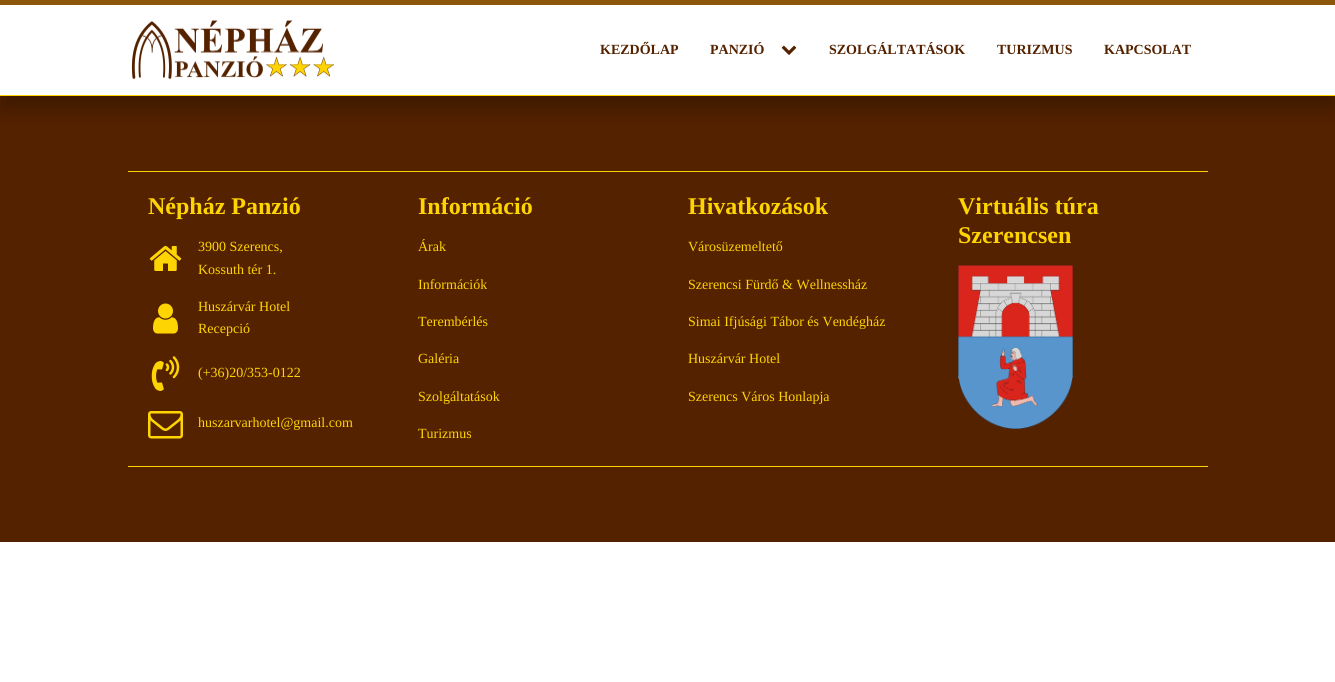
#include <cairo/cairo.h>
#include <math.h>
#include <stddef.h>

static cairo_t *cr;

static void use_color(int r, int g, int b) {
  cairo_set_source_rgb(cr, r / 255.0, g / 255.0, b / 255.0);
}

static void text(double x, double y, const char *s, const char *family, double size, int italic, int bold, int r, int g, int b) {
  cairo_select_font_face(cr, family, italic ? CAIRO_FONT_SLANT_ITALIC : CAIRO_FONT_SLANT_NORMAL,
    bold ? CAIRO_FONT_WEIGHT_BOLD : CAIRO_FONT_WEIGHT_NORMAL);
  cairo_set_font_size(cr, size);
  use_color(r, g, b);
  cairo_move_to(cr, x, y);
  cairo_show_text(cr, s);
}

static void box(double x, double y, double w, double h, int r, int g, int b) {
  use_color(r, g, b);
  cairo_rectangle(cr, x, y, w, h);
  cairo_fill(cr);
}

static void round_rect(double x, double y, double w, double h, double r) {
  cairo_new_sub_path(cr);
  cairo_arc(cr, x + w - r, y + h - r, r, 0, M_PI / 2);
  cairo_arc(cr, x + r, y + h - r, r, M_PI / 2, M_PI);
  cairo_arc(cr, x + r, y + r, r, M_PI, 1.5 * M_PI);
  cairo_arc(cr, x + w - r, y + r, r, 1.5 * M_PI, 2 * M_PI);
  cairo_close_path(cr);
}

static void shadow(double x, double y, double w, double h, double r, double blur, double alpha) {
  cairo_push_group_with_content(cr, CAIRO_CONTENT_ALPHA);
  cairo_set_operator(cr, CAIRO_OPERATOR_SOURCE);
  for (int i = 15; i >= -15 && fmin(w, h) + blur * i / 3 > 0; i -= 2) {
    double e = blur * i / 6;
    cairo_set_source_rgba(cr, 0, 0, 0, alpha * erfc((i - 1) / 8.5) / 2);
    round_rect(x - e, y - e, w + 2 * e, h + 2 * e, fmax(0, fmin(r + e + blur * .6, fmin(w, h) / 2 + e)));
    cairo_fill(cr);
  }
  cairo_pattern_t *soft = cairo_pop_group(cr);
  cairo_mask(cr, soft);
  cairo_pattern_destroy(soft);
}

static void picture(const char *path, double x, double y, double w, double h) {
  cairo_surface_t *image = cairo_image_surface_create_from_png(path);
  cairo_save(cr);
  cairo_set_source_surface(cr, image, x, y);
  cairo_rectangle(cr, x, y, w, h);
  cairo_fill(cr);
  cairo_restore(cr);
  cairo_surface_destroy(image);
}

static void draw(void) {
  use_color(255, 255, 255);
  cairo_paint(cr);
  box(0, 96, 1335, 446, 85, 34, 0);
  cairo_save(cr);
  cairo_rectangle(cr, 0, 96, 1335, 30);
  cairo_clip(cr);
  use_color(0, 0, 0);
  shadow(0, 12, 1335, 96, 0, 12, 0.3);
  cairo_restore(cr);
  box(0, 0, 1335, 5, 140, 86, 11);
  box(0, 95, 1335, 1, 254, 212, 2);
  picture("img_01.png", 131, 20, 203, 60);
  picture("img_02.png", 781, 45, 16, 10);
  box(128, 171, 1080, 1, 254, 212, 2);
  box(128, 466, 1080, 1, 254, 212, 2);
  picture("img_03.png", 149, 245, 33, 26);
  picture("img_04.png", 153, 303, 25, 31);
  picture("img_05.png", 151, 356, 29, 35);
  picture("img_06.png", 148, 411, 35, 28);
  picture("img_07.png", 958, 265, 115, 164);
  text(600, 54, "KEZDŐLAP", "Liberation Serif", 14, 0, 1, 85, 34, 0);
  text(710, 54, "PANZIÓ", "Liberation Serif", 14, 0, 1, 85, 34, 0);
  text(829, 54, "SZOLGÁLTATÁSOK", "Liberation Serif", 14, 0, 1, 85, 34, 0);
  text(997, 54, "TURIZMUS", "Liberation Serif", 14, 0, 1, 85, 34, 0);
  text(1104, 54, "KAPCSOLAT", "Liberation Serif", 14, 0, 1, 85, 34, 0);
  text(148, 214, "Népház Panzió", "Liberation Serif", 24, 0, 1, 254, 212, 2);
  text(198, 251, "3900 Szerencs,", "Liberation Serif", 14, 0, 0, 254, 212, 2);
  text(198, 274, "Kossuth tér 1.", "Liberation Serif", 14, 0, 0, 254, 212, 2);
  text(198, 311, "Huszárvár Hotel", "Liberation Serif", 14, 0, 0, 254, 212, 2);
  text(198, 333, "Recepció", "Liberation Serif", 14, 0, 0, 254, 212, 2);
  text(198, 377, "(+36)20/353-0122", "Liberation Serif", 14, 0, 0, 254, 212, 2);
  text(198, 427, "huszarvarhotel@gmail.com", "Liberation Serif", 14, 0, 0, 254, 212, 2);
  text(418, 214, "Információ", "Liberation Serif", 24, 0, 1, 254, 212, 2);
  text(418, 251, "Árak", "Liberation Serif", 14, 0, 0, 254, 212, 2);
  text(418, 289, "Információk", "Liberation Serif", 14, 0, 0, 254, 212, 2);
  text(418, 326, "Terembérlés", "Liberation Serif", 14, 0, 0, 254, 212, 2);
  text(418, 363, "Galéria", "Liberation Serif", 14, 0, 0, 254, 212, 2);
  text(418, 401, "Szolgáltatások", "Liberation Serif", 14, 0, 0, 254, 212, 2);
  text(418, 438, "Turizmus", "Liberation Serif", 14, 0, 0, 254, 212, 2);
  text(688, 214, "Hivatkozások", "Liberation Serif", 24, 0, 1, 254, 212, 2);
  text(688, 251, "Városüzemeltető", "Liberation Serif", 14, 0, 0, 254, 212, 2);
  text(688, 289, "Szerencsi Fürdő & Wellnessház", "Liberation Serif", 14, 0, 0, 254, 212, 2);
  text(688, 326, "Simai Ifjúsági Tábor és Vendégház", "Liberation Serif", 14, 0, 0, 254, 212, 2);
  text(688, 363, "Huszárvár Hotel", "Liberation Serif", 14, 0, 0, 254, 212, 2);
  text(688, 401, "Szerencs Város Honlapja", "Liberation Serif", 14, 0, 0, 254, 212, 2);
  text(958, 214, "Virtuális túra", "Liberation Serif", 24, 0, 1, 254, 212, 2);
  text(958, 243, "Szerencsen", "Liberation Serif", 24, 0, 1, 254, 212, 2);
}

int main(void) {
  cairo_surface_t *surface = cairo_image_surface_create(CAIRO_FORMAT_RGB24, 1335, 682);
  cr = cairo_create(surface);
  cairo_font_options_t *options = cairo_font_options_create();
  cairo_font_options_set_hint_metrics(options, CAIRO_HINT_METRICS_OFF);
  cairo_font_options_set_hint_style(options, CAIRO_HINT_STYLE_NONE);
  cairo_set_font_options(cr, options);
  cairo_set_miter_limit(cr, 4);
  draw();
  cairo_surface_write_to_png(surface, "out.png");
  cairo_font_options_destroy(options);
  cairo_destroy(cr);
  cairo_surface_destroy(surface);
  return 0;
}
